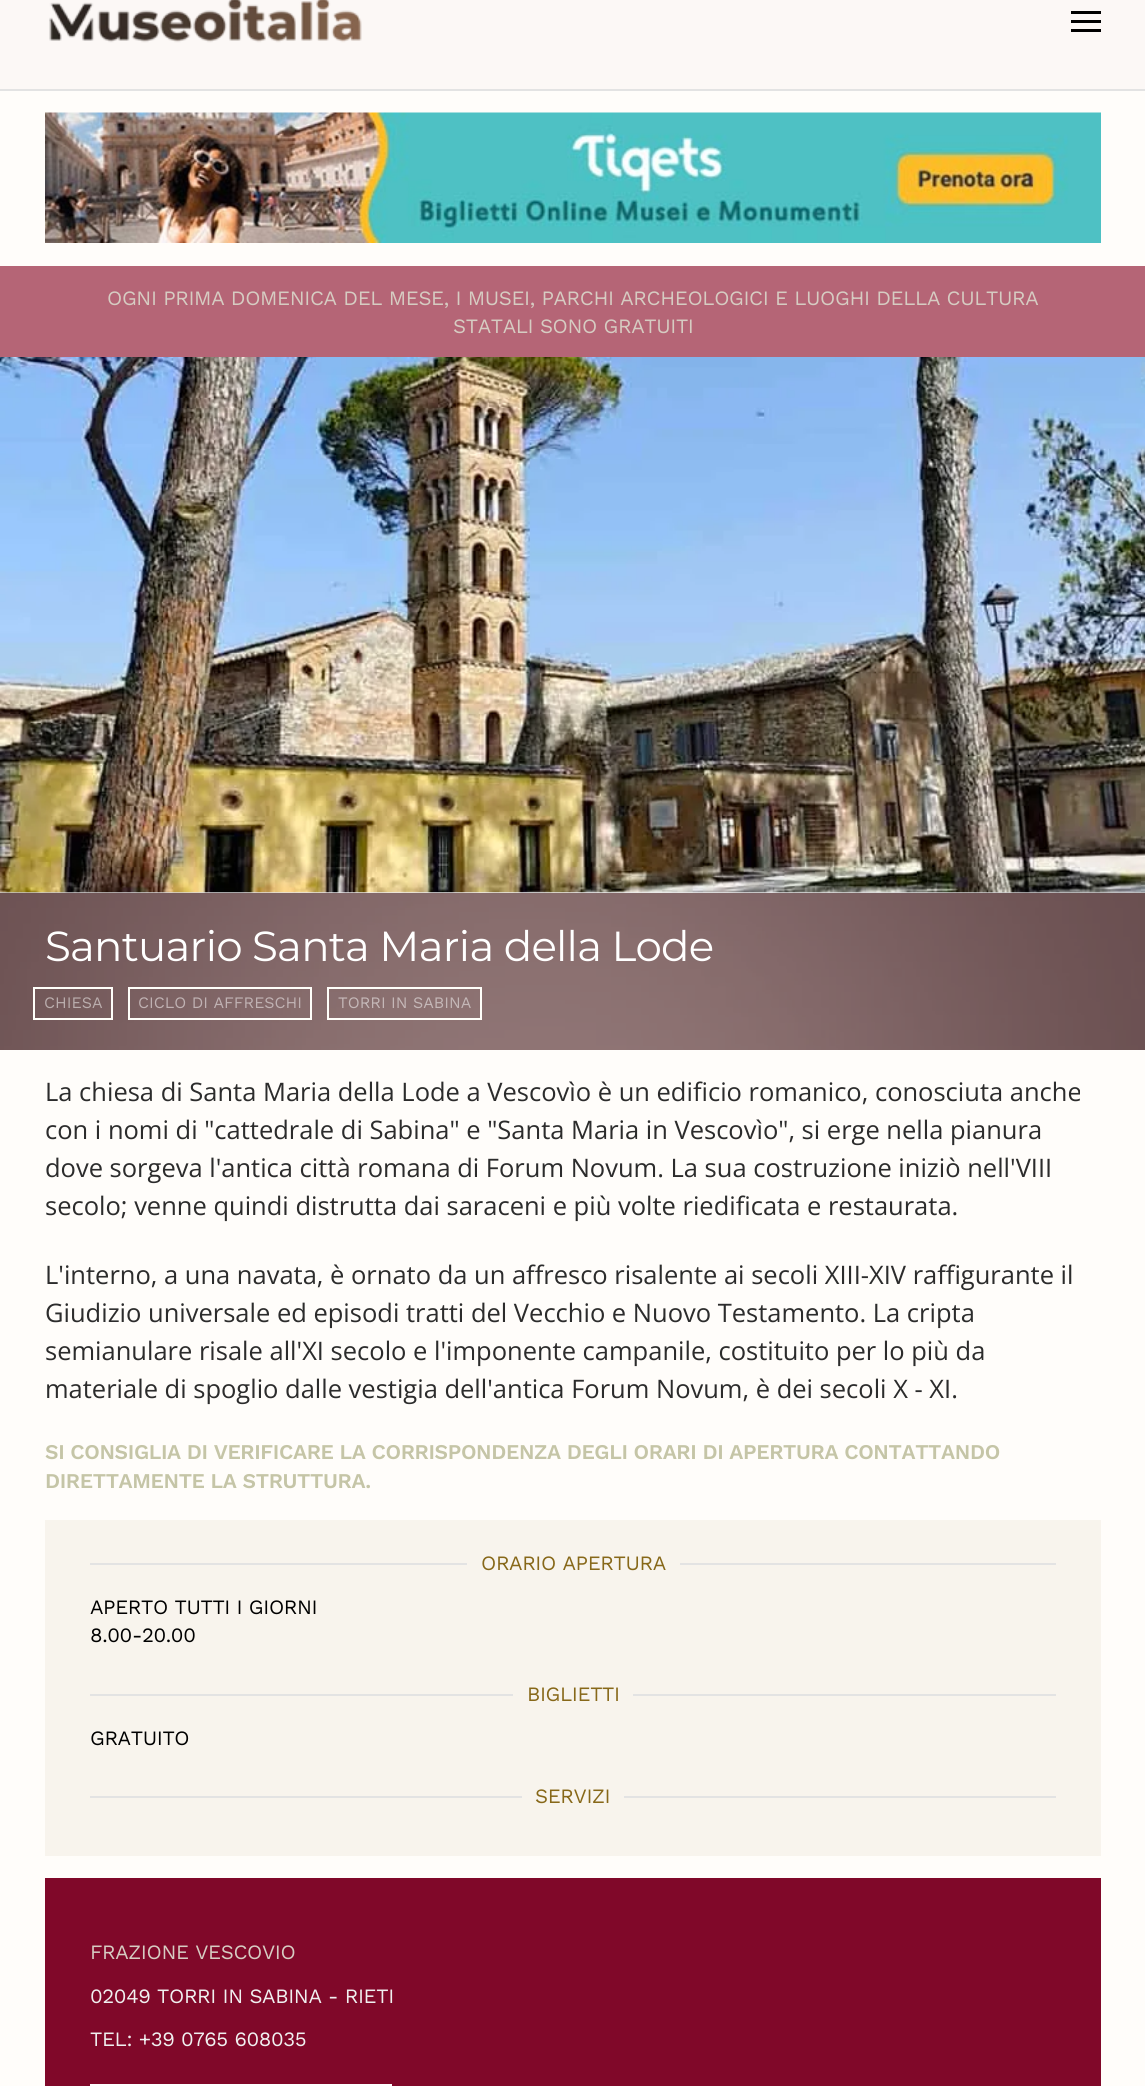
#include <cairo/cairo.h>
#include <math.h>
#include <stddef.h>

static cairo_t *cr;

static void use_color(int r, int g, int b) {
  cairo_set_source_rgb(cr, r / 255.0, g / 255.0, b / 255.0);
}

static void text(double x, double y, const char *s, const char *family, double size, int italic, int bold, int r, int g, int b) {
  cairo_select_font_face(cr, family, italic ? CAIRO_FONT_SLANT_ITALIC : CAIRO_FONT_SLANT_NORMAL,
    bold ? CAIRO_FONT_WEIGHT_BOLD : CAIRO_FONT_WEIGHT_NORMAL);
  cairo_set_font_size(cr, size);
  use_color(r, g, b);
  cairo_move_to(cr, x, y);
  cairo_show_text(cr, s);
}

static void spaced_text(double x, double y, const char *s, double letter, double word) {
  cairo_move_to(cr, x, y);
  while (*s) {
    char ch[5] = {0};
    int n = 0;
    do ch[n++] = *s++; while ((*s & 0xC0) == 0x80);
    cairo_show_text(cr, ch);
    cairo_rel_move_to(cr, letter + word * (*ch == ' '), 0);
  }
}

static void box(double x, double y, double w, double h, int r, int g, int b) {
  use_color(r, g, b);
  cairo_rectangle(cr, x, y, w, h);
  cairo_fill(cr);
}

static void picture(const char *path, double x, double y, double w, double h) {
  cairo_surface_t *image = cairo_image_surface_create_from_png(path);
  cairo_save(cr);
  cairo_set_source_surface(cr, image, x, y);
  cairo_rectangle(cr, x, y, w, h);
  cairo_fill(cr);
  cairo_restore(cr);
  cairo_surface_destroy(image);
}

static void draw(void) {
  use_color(255, 253, 250);
  cairo_paint(cr);
  box(0, 0, 1145, 89, 252, 248, 246);
  box(0, 89, 1145, 2, 227, 227, 227);
  picture("img_01.png", 49, 0, 313, 43);
  box(1071, 11, 30, 3, 0, 0, 0);
  box(1071, 20, 30, 3, 0, 0, 0);
  box(1071, 29, 30, 3, 0, 0, 0);
  picture("img_02.png", 45, 112, 1056, 131);
  box(0, 266, 1145, 91, 181, 101, 118);
  picture("img_03.png", 0, 357, 1145, 536);
  picture("img_04.png", 0, 892, 1145, 158);
  cairo_rectangle(cr, 34, 988, 78, 31);
  use_color(255, 255, 250);
  cairo_stroke(cr);
  cairo_rectangle(cr, 129, 988, 182, 31);
  cairo_stroke(cr);
  cairo_rectangle(cr, 328, 988, 153, 31);
  cairo_stroke(cr);
  box(45, 1520, 1056, 336, 248, 244, 237);
  box(90, 1563, 377, 2, 227, 227, 227);
  box(680, 1563, 376, 2, 227, 227, 227);
  box(90, 1694, 423, 2, 227, 227, 227);
  box(633, 1694, 423, 2, 227, 227, 227);
  box(90, 1796, 432, 2, 227, 227, 227);
  box(624, 1796, 432, 2, 227, 227, 227);
  box(45, 1878, 1056, 208, 128, 8, 41);
  cairo_rectangle(cr, 91, 2085, 300, 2);
  use_color(255, 255, 255);
  cairo_stroke(cr);
  cairo_select_font_face(cr, "Work Sans", CAIRO_FONT_SLANT_NORMAL, CAIRO_FONT_WEIGHT_NORMAL);
  cairo_set_font_size(cr, 20.4);
  use_color(214, 204, 194);
  spaced_text(107, 305, "OGNI PRIMA DOMENICA DEL MESE, I MUSEI, PARCHI ARCHEOLOGICI E LUOGHI DELLA CULTURA", -0.37, 0);
  spaced_text(453, 333, "STATALI SONO GRATUITI", -0.37, 0);
  cairo_select_font_face(cr, "Montserrat", CAIRO_FONT_SLANT_NORMAL, CAIRO_FONT_WEIGHT_NORMAL);
  cairo_set_font_size(cr, 42);
  use_color(255, 255, 255);
  spaced_text(45, 961, "Santuario Santa Maria della Lode", -0.75, 0);
  text(44, 1008, "CHIESA", "Work Sans", 16, 0, 0, 186, 173, 173);
  text(138, 1008, "CICLO DI AFFRESCHI", "Work Sans", 16, 0, 0, 192, 178, 179);
  text(338, 1008, "TORRI IN SABINA", "Work Sans", 16, 0, 0, 197, 184, 184);
  text(45, 1101, "La chiesa di Santa Maria della Lode a Vescovìo è un edificio romanico, conosciuta anche", "Open Sans", 25.5, 0, 0, 44, 44, 44);
  text(45, 1139, "con i nomi di \"cattedrale di Sabina\" e \"Santa Maria in Vescovìo\", si erge nella pianura", "Open Sans", 25.5, 0, 0, 44, 44, 44);
  text(45, 1177, "dove sorgeva l'antica città romana di Forum Novum. La sua costruzione iniziò nell'VIII", "Open Sans", 25.5, 0, 0, 44, 44, 44);
  text(45, 1215, "secolo; venne quindi distrutta dai saraceni e più volte riedificata e restaurata.", "Open Sans", 25.5, 0, 0, 44, 44, 44);
  text(45, 1284, "L'interno, a una navata, è ornato da un affresco risalente ai secoli XIII-XIV raffigurante il", "Open Sans", 25.5, 0, 0, 44, 44, 44);
  text(45, 1322, "Giudizio universale ed episodi tratti del Vecchio e Nuovo Testamento. La cripta", "Open Sans", 25.5, 0, 0, 44, 44, 44);
  text(45, 1360, "semianulare risale all'XI secolo e l'imponente campanile, costituito per lo più da", "Open Sans", 25.5, 0, 0, 44, 44, 44);
  text(45, 1398, "materiale di spoglio dalle vestigia dell'antica Forum Novum, è dei secoli X - XI.", "Open Sans", 25.5, 0, 0, 44, 44, 44);
  cairo_select_font_face(cr, "Work Sans SemiBold", CAIRO_FONT_SLANT_NORMAL, CAIRO_FONT_WEIGHT_NORMAL);
  cairo_set_font_size(cr, 21);
  use_color(197, 197, 167);
  spaced_text(45, 1459, "SI CONSIGLIA DI VERIFICARE LA CORRISPONDENZA DEGLI ORARI DI APERTURA CONTATTANDO", -0.38, 0);
  spaced_text(45, 1488, "DIRETTAMENTE LA STRUTTURA.", -0.38, 0);
  cairo_select_font_face(cr, "Work Sans", CAIRO_FONT_SLANT_NORMAL, CAIRO_FONT_WEIGHT_NORMAL);
  cairo_set_font_size(cr, 20.4);
  use_color(135, 104, 25);
  spaced_text(481, 1570, "ORARIO APERTURA", -0.37, 0);
  use_color(0, 0, 0);
  spaced_text(90, 1614, "APERTO TUTTI I GIORNI", -0.37, 0);
  spaced_text(90, 1642, "8.00-20.00", -0.37, 0);
  use_color(135, 104, 25);
  spaced_text(527, 1701, "BIGLIETTI", -0.37, 0);
  use_color(0, 0, 0);
  spaced_text(90, 1745, "GRATUITO", -0.37, 0);
  use_color(135, 104, 25);
  spaced_text(535, 1803, "SERVIZI", -0.37, 0);
  use_color(214, 204, 194);
  spaced_text(90, 1959, "FRAZIONE VESCOVIO", -0.37, 0);
  use_color(240, 240, 240);
  spaced_text(90, 2003, "02049 TORRI IN SABINA - RIETI", -0.37, 0);
  spaced_text(90, 2046, "TEL: +39 0765 608035", -0.37, 0);
}

int main(void) {
  cairo_surface_t *surface = cairo_image_surface_create(CAIRO_FORMAT_RGB24, 1145, 2086);
  cr = cairo_create(surface);
  cairo_font_options_t *options = cairo_font_options_create();
  cairo_font_options_set_hint_metrics(options, CAIRO_HINT_METRICS_OFF);
  cairo_font_options_set_hint_style(options, CAIRO_HINT_STYLE_NONE);
  cairo_set_font_options(cr, options);
  cairo_set_miter_limit(cr, 4);
  draw();
  cairo_surface_write_to_png(surface, "out.png");
  cairo_font_options_destroy(options);
  cairo_destroy(cr);
  cairo_surface_destroy(surface);
  return 0;
}
